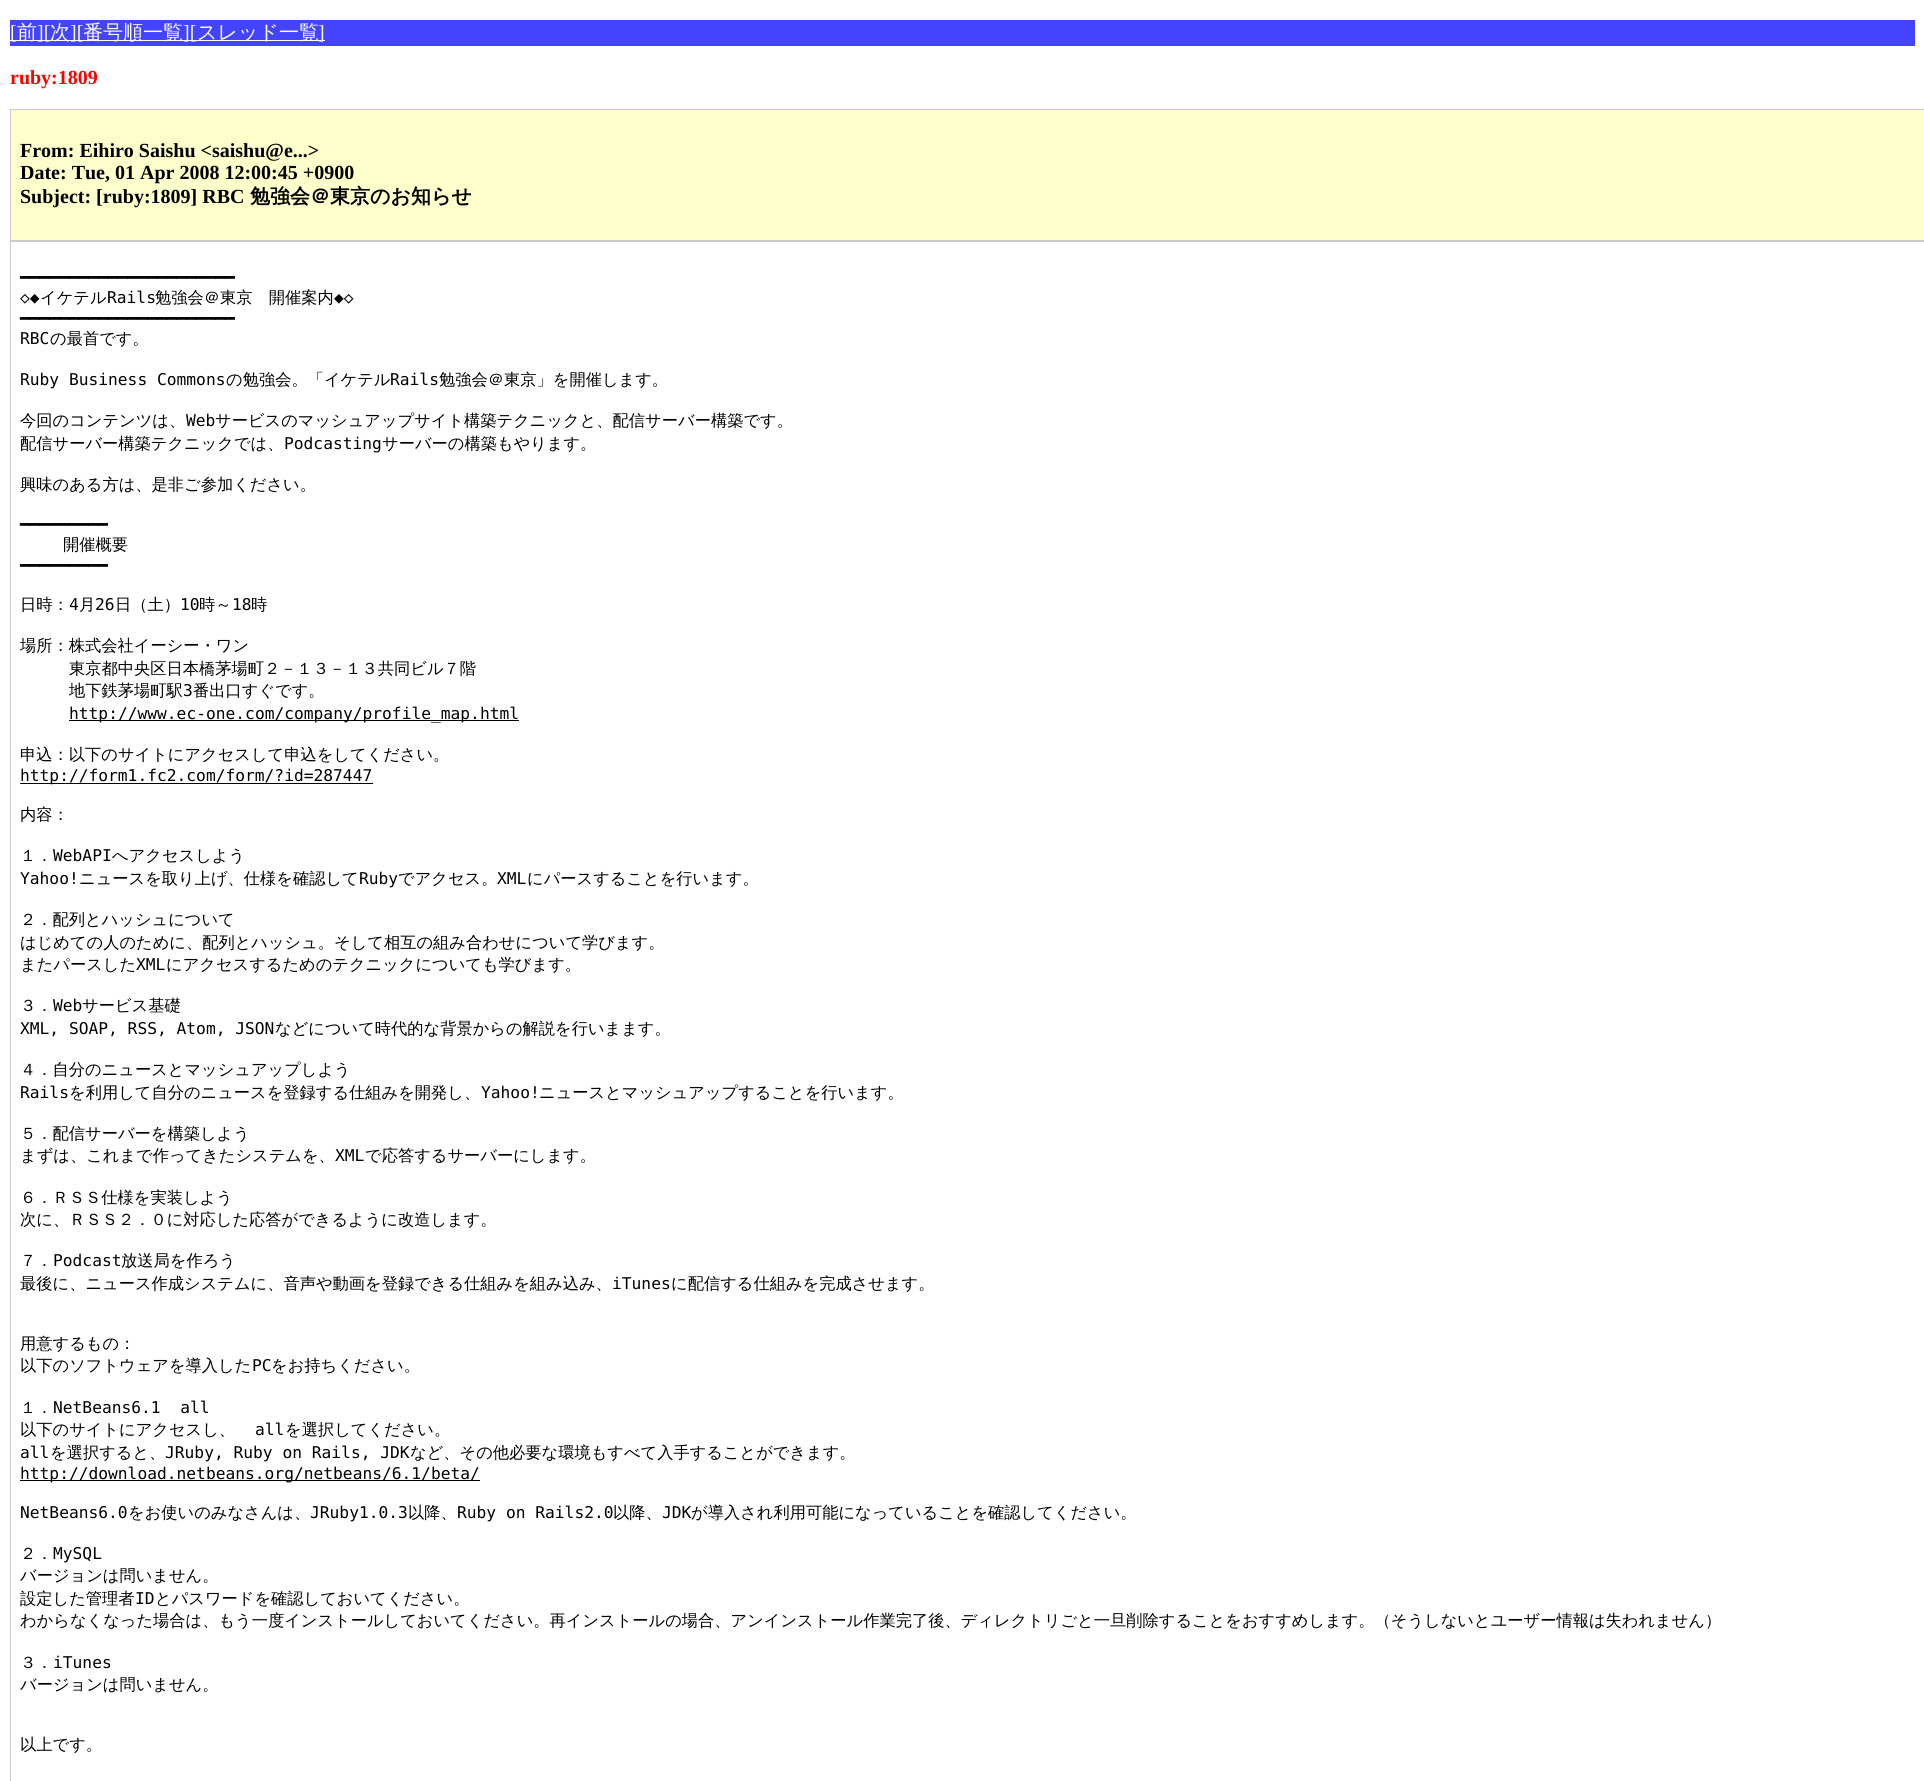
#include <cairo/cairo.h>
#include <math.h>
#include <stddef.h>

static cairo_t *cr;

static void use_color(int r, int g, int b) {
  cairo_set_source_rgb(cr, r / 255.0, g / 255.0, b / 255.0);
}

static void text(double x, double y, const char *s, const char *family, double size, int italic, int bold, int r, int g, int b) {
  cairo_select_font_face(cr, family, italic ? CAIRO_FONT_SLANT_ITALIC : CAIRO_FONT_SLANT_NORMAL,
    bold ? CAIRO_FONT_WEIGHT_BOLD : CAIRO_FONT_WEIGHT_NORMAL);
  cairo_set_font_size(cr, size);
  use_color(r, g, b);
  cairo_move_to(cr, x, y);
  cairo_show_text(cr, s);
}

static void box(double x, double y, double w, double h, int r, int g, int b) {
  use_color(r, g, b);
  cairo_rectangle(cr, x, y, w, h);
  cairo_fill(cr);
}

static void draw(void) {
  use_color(255, 255, 255);
  cairo_paint(cr);
  box(10, 20, 1905, 26, 68, 68, 255);
  box(10, 40, 315, 1, 255, 255, 255);
  use_color(255, 255, 204);
  cairo_rectangle(cr, 10.5, 109.5, 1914, 131);
  cairo_fill_preserve(cr);
  use_color(204, 204, 204);
  cairo_set_line_width(cr, 1);
  cairo_stroke(cr);
  cairo_rectangle(cr, 10.5, 241.5, 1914, 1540);
  cairo_stroke(cr);
  box(69, 720, 450, 1, 0, 0, 0);
  box(20, 783, 353, 1, 0, 0, 0);
  box(20, 1480, 460, 1, 0, 0, 0);
  text(10, 39, "[", "Liberation Serif", 20, 0, 0, 255, 255, 255);
  text(17, 39, "前", "WenQuanYi Zen Hei Medium", 20, 0, 0, 255, 255, 255);
  text(37, 39, "][", "Liberation Serif", 20, 0, 0, 255, 255, 255);
  text(50, 39, "次", "WenQuanYi Zen Hei Medium", 20, 0, 0, 255, 255, 255);
  text(70, 39, "][", "Liberation Serif", 20, 0, 0, 255, 255, 255);
  text(83, 39, "番号順一覧", "WenQuanYi Zen Hei Medium", 20, 0, 0, 255, 255, 255);
  text(183, 39, "][", "Liberation Serif", 20, 0, 0, 255, 255, 255);
  text(197, 39, "スレッド一覧", "WenQuanYi Zen Hei Medium", 20, 0, 0, 255, 255, 255);
  text(318, 39, "]", "Liberation Serif", 20, 0, 0, 255, 255, 255);
  text(10, 84, "ruby:1809", "Liberation Serif", 20, 0, 1, 255, 0, 0);
  text(20, 157, "From: Eihiro Saishu <saishu@e...>", "Liberation Serif", 20, 0, 1, 0, 0, 0);
  text(20, 179, "Date: Tue, 01 Apr 2008 12:00:45 +0900", "Liberation Serif", 20, 0, 1, 0, 0, 0);
  text(20, 203, "Subject: [ruby:1809] RBC", "Liberation Serif", 20, 0, 1, 0, 0, 0);
  text(250, 203, "勉強会＠東京のお知らせ", "WenQuanYi Zen Hei", 20, 0, 1, 0, 0, 0);
  text(20, 283, "━━━━━━━━━━━━━━━━━━━━━━", "DejaVu Sans Mono", 16.25, 0, 0, 0, 0, 0);
  text(20, 303, "◇◆", "DejaVu Sans Mono", 16.25, 0, 0, 0, 0, 0);
  text(40, 303, "イケテル", "WenQuanYi Zen Hei Medium", 16.25, 0, 0, 0, 0, 0);
  text(107, 303, "Rails", "DejaVu Sans Mono", 16.25, 0, 0, 0, 0, 0);
  text(155, 303, "勉強会＠東京　開催案内", "WenQuanYi Zen Hei Medium", 16.25, 0, 0, 0, 0, 0);
  text(334, 303, "◆◇", "DejaVu Sans Mono", 16.25, 0, 0, 0, 0, 0);
  text(20, 324, "━━━━━━━━━━━━━━━━━━━━━━", "DejaVu Sans Mono", 16.25, 0, 0, 0, 0, 0);
  text(20, 344, "RBC", "DejaVu Sans Mono", 16.25, 0, 0, 0, 0, 0);
  text(50, 344, "の最首です。", "WenQuanYi Zen Hei Medium", 16.25, 0, 0, 0, 0, 0);
  text(20, 385, "Ruby Business Commons", "DejaVu Sans Mono", 16.25, 0, 0, 0, 0, 0);
  text(226, 385, "の勉強会。「イケテル", "WenQuanYi Zen Hei Medium", 16.25, 0, 0, 0, 0, 0);
  text(390, 385, "Rails", "DejaVu Sans Mono", 16.25, 0, 0, 0, 0, 0);
  text(439, 385, "勉強会＠東京」を開催します。", "WenQuanYi Zen Hei Medium", 16.25, 0, 0, 0, 0, 0);
  text(20, 426, "今回のコンテンツは、", "WenQuanYi Zen Hei Medium", 16.25, 0, 0, 0, 0, 0);
  text(186, 426, "Web", "DejaVu Sans Mono", 16.25, 0, 0, 0, 0, 0);
  text(215, 426, "サービスのマッシュアップサイト構築テクニックと、配信サーバー構築です。", "WenQuanYi Zen Hei Medium", 16.25, 0, 0, 0, 0, 0);
  text(20, 449, "配信サーバー構築テクニックでは、", "WenQuanYi Zen Hei Medium", 16.25, 0, 0, 0, 0, 0);
  text(284, 449, "Podcasting", "DejaVu Sans Mono", 16.25, 0, 0, 0, 0, 0);
  text(382, 449, "サーバーの構築もやります。", "WenQuanYi Zen Hei Medium", 16.25, 0, 0, 0, 0, 0);
  text(20, 490, "興味のある方は、是非ご参加ください。", "WenQuanYi Zen Hei Medium", 16.25, 0, 0, 0, 0, 0);
  text(20, 530, "━━━━━━━━━", "DejaVu Sans Mono", 16.25, 0, 0, 0, 0, 0);
  text(63, 550, "開催概要", "WenQuanYi Zen Hei Medium", 16.25, 0, 0, 0, 0, 0);
  text(20, 571, "━━━━━━━━━", "DejaVu Sans Mono", 16.25, 0, 0, 0, 0, 0);
  text(20, 610, "日時：", "WenQuanYi Zen Hei Medium", 16.25, 0, 0, 0, 0, 0);
  text(69, 610, "4", "DejaVu Sans Mono", 16.25, 0, 0, 0, 0, 0);
  text(79, 610, "月", "WenQuanYi Zen Hei Medium", 16.25, 0, 0, 0, 0, 0);
  text(95, 610, "26", "DejaVu Sans Mono", 16.25, 0, 0, 0, 0, 0);
  text(115, 610, "日（土）", "WenQuanYi Zen Hei Medium", 16.25, 0, 0, 0, 0, 0);
  text(180, 610, "10", "DejaVu Sans Mono", 16.25, 0, 0, 0, 0, 0);
  text(199, 610, "時～", "WenQuanYi Zen Hei Medium", 16.25, 0, 0, 0, 0, 0);
  text(232, 610, "18", "DejaVu Sans Mono", 16.25, 0, 0, 0, 0, 0);
  text(251, 610, "時", "WenQuanYi Zen Hei Medium", 16.25, 0, 0, 0, 0, 0);
  text(20, 651, "場所：株式会社イーシー・ワン", "WenQuanYi Zen Hei Medium", 16.25, 0, 0, 0, 0, 0);
  text(69, 674, "東京都中央区日本橋茅場町２－１３－１３共同ビル７階", "WenQuanYi Zen Hei Medium", 16.25, 0, 0, 0, 0, 0);
  text(69, 696, "地下鉄茅場町駅", "WenQuanYi Zen Hei Medium", 16.25, 0, 0, 0, 0, 0);
  text(183, 696, "3", "DejaVu Sans Mono", 16.25, 0, 0, 0, 0, 0);
  text(193, 696, "番出口すぐです。", "WenQuanYi Zen Hei Medium", 16.25, 0, 0, 0, 0, 0);
  text(69, 719, "http://www.ec-one.com/company/profile_map.html", "DejaVu Sans Mono", 16.25, 0, 0, 0, 0, 0);
  text(20, 760, "申込：以下のサイトにアクセスして申込をしてください。", "WenQuanYi Zen Hei Medium", 16.25, 0, 0, 0, 0, 0);
  text(20, 781, "http://form1.fc2.com/form/?id=287447", "DejaVu Sans Mono", 16.25, 0, 0, 0, 0, 0);
  text(20, 820, "内容：", "WenQuanYi Zen Hei Medium", 16.25, 0, 0, 0, 0, 0);
  text(20, 861, "１．", "WenQuanYi Zen Hei Medium", 16.25, 0, 0, 0, 0, 0);
  text(53, 861, "WebAPI", "DejaVu Sans Mono", 16.25, 0, 0, 0, 0, 0);
  text(112, 861, "へアクセスしよう", "WenQuanYi Zen Hei Medium", 16.25, 0, 0, 0, 0, 0);
  text(20, 884, "Yahoo!", "DejaVu Sans Mono", 16.25, 0, 0, 0, 0, 0);
  text(79, 884, "ニュースを取り上げ、仕様を確認して", "WenQuanYi Zen Hei Medium", 16.25, 0, 0, 0, 0, 0);
  text(359, 884, "Ruby", "DejaVu Sans Mono", 16.25, 0, 0, 0, 0, 0);
  text(398, 884, "でアクセス。", "WenQuanYi Zen Hei Medium", 16.25, 0, 0, 0, 0, 0);
  text(497, 884, "XML", "DejaVu Sans Mono", 16.25, 0, 0, 0, 0, 0);
  text(527, 884, "にパースすることを行います。", "WenQuanYi Zen Hei Medium", 16.25, 0, 0, 0, 0, 0);
  text(20, 925, "２．配列とハッシュについて", "WenQuanYi Zen Hei Medium", 16.25, 0, 0, 0, 0, 0);
  text(20, 948, "はじめての人のために、配列とハッシュ。そして相互の組み合わせについて学びます。", "WenQuanYi Zen Hei Medium", 16.25, 0, 0, 0, 0, 0);
  text(20, 970, "またパースした", "WenQuanYi Zen Hei Medium", 16.25, 0, 0, 0, 0, 0);
  text(136, 970, "XML", "DejaVu Sans Mono", 16.25, 0, 0, 0, 0, 0);
  text(166, 970, "にアクセスするためのテクニックについても学びます。", "WenQuanYi Zen Hei Medium", 16.25, 0, 0, 0, 0, 0);
  text(20, 1011, "３．", "WenQuanYi Zen Hei Medium", 16.25, 0, 0, 0, 0, 0);
  text(53, 1011, "Web", "DejaVu Sans Mono", 16.25, 0, 0, 0, 0, 0);
  text(82, 1011, "サービス基礎", "WenQuanYi Zen Hei Medium", 16.25, 0, 0, 0, 0, 0);
  text(20, 1034, "XML, SOAP, RSS, Atom, JSON", "DejaVu Sans Mono", 16.25, 0, 0, 0, 0, 0);
  text(275, 1034, "などについて時代的な背景からの解説を行いまます。", "WenQuanYi Zen Hei Medium", 16.25, 0, 0, 0, 0, 0);
  text(20, 1075, "４．自分のニュースとマッシュアップしよう", "WenQuanYi Zen Hei Medium", 16.25, 0, 0, 0, 0, 0);
  text(20, 1098, "Rails", "DejaVu Sans Mono", 16.25, 0, 0, 0, 0, 0);
  text(69, 1098, "を利用して自分のニュースを登録する仕組みを開発し、", "WenQuanYi Zen Hei Medium", 16.25, 0, 0, 0, 0, 0);
  text(481, 1098, "Yahoo!", "DejaVu Sans Mono", 16.25, 0, 0, 0, 0, 0);
  text(539, 1098, "ニュースとマッシュアップすることを行います。", "WenQuanYi Zen Hei Medium", 16.25, 0, 0, 0, 0, 0);
  text(20, 1139, "５．配信サーバーを構築しよう", "WenQuanYi Zen Hei Medium", 16.25, 0, 0, 0, 0, 0);
  text(20, 1161, "まずは、これまで作ってきたシステムを、", "WenQuanYi Zen Hei Medium", 16.25, 0, 0, 0, 0, 0);
  text(335, 1161, "XML", "DejaVu Sans Mono", 16.25, 0, 0, 0, 0, 0);
  text(365, 1161, "で応答するサーバーにします。", "WenQuanYi Zen Hei Medium", 16.25, 0, 0, 0, 0, 0);
  text(20, 1203, "６．ＲＳＳ仕様を実装しよう", "WenQuanYi Zen Hei Medium", 16.25, 0, 0, 0, 0, 0);
  text(20, 1225, "次に、ＲＳＳ２．０に対応した応答ができるように改造します。", "WenQuanYi Zen Hei Medium", 16.25, 0, 0, 0, 0, 0);
  text(20, 1266, "７．", "WenQuanYi Zen Hei Medium", 16.25, 0, 0, 0, 0, 0);
  text(53, 1266, "Podcast", "DejaVu Sans Mono", 16.25, 0, 0, 0, 0, 0);
  text(121, 1266, "放送局を作ろう", "WenQuanYi Zen Hei Medium", 16.25, 0, 0, 0, 0, 0);
  text(20, 1289, "最後に、ニュース作成システムに、音声や動画を登録できる仕組みを組み込み、", "WenQuanYi Zen Hei Medium", 16.25, 0, 0, 0, 0, 0);
  text(612, 1289, "iTunes", "DejaVu Sans Mono", 16.25, 0, 0, 0, 0, 0);
  text(671, 1289, "に配信する仕組みを完成させます。", "WenQuanYi Zen Hei Medium", 16.25, 0, 0, 0, 0, 0);
  text(20, 1349, "用意するもの：", "WenQuanYi Zen Hei Medium", 16.25, 0, 0, 0, 0, 0);
  text(20, 1371, "以下のソフトウェアを導入した", "WenQuanYi Zen Hei Medium", 16.25, 0, 0, 0, 0, 0);
  text(252, 1371, "PC", "DejaVu Sans Mono", 16.25, 0, 0, 0, 0, 0);
  text(271, 1371, "をお持ちください。", "WenQuanYi Zen Hei Medium", 16.25, 0, 0, 0, 0, 0);
  text(20, 1413, "１．", "WenQuanYi Zen Hei Medium", 16.25, 0, 0, 0, 0, 0);
  text(53, 1413, "NetBeans6.1  all", "DejaVu Sans Mono", 16.25, 0, 0, 0, 0, 0);
  text(20, 1435, "以下のサイトにアクセスし、", "WenQuanYi Zen Hei Medium", 16.25, 0, 0, 0, 0, 0);
  text(255, 1435, "all", "DejaVu Sans Mono", 16.25, 0, 0, 0, 0, 0);
  text(285, 1435, "を選択してください。", "WenQuanYi Zen Hei Medium", 16.25, 0, 0, 0, 0, 0);
  text(20, 1458, "all", "DejaVu Sans Mono", 16.25, 0, 0, 0, 0, 0);
  text(50, 1458, "を選択すると、", "WenQuanYi Zen Hei Medium", 16.25, 0, 0, 0, 0, 0);
  text(165, 1458, "JRuby, Ruby on Rails, JDK", "DejaVu Sans Mono", 16.25, 0, 0, 0, 0, 0);
  text(410, 1458, "など、その他必要な環境もすべて入手することができます。", "WenQuanYi Zen Hei Medium", 16.25, 0, 0, 0, 0, 0);
  text(20, 1479, "http://download.netbeans.org/netbeans/6.1/beta/", "DejaVu Sans Mono", 16.25, 0, 0, 0, 0, 0);
  text(20, 1518, "NetBeans6.0", "DejaVu Sans Mono", 16.25, 0, 0, 0, 0, 0);
  text(128, 1518, "をお使いのみなさんは、", "WenQuanYi Zen Hei Medium", 16.25, 0, 0, 0, 0, 0);
  text(310, 1518, "JRuby1.0.3", "DejaVu Sans Mono", 16.25, 0, 0, 0, 0, 0);
  text(408, 1518, "以降、", "WenQuanYi Zen Hei Medium", 16.25, 0, 0, 0, 0, 0);
  text(457, 1518, "Ruby on Rails2.0", "DejaVu Sans Mono", 16.25, 0, 0, 0, 0, 0);
  text(613, 1518, "以降、", "WenQuanYi Zen Hei Medium", 16.25, 0, 0, 0, 0, 0);
  text(662, 1518, "JDK", "DejaVu Sans Mono", 16.25, 0, 0, 0, 0, 0);
  text(691, 1518, "が導入され利用可能になっていることを確認してください。", "WenQuanYi Zen Hei Medium", 16.25, 0, 0, 0, 0, 0);
  text(20, 1559, "２．", "WenQuanYi Zen Hei Medium", 16.25, 0, 0, 0, 0, 0);
  text(53, 1559, "MySQL", "DejaVu Sans Mono", 16.25, 0, 0, 0, 0, 0);
  text(20, 1581, "バージョンは問いません。", "WenQuanYi Zen Hei Medium", 16.25, 0, 0, 0, 0, 0);
  text(20, 1604, "設定した管理者", "WenQuanYi Zen Hei Medium", 16.25, 0, 0, 0, 0, 0);
  text(135, 1604, "ID", "DejaVu Sans Mono", 16.25, 0, 0, 0, 0, 0);
  text(155, 1604, "とパスワードを確認しておいてください。", "WenQuanYi Zen Hei Medium", 16.25, 0, 0, 0, 0, 0);
  text(20, 1626, "わからなくなった場合は、もう一度インストールしておいてください。再インストールの場合、アンインストール作業完了後、ディレクトリごと一旦削除することをおすすめします。（そうしないとユーザー情報は失われません）", "WenQuanYi Zen Hei Medium", 16.25, 0, 0, 0, 0, 0);
  text(20, 1668, "３．", "WenQuanYi Zen Hei Medium", 16.25, 0, 0, 0, 0, 0);
  text(53, 1668, "iTunes", "DejaVu Sans Mono", 16.25, 0, 0, 0, 0, 0);
  text(20, 1690, "バージョンは問いません。", "WenQuanYi Zen Hei Medium", 16.25, 0, 0, 0, 0, 0);
  text(20, 1750, "以上です。", "WenQuanYi Zen Hei Medium", 16.25, 0, 0, 0, 0, 0);
}

int main(void) {
  cairo_surface_t *surface = cairo_image_surface_create(CAIRO_FORMAT_RGB24, 1924, 1781);
  cr = cairo_create(surface);
  cairo_font_options_t *options = cairo_font_options_create();
  cairo_font_options_set_hint_metrics(options, CAIRO_HINT_METRICS_OFF);
  cairo_font_options_set_hint_style(options, CAIRO_HINT_STYLE_NONE);
  cairo_set_font_options(cr, options);
  cairo_set_miter_limit(cr, 4);
  draw();
  cairo_surface_write_to_png(surface, "out.png");
  cairo_font_options_destroy(options);
  cairo_destroy(cr);
  cairo_surface_destroy(surface);
  return 0;
}
